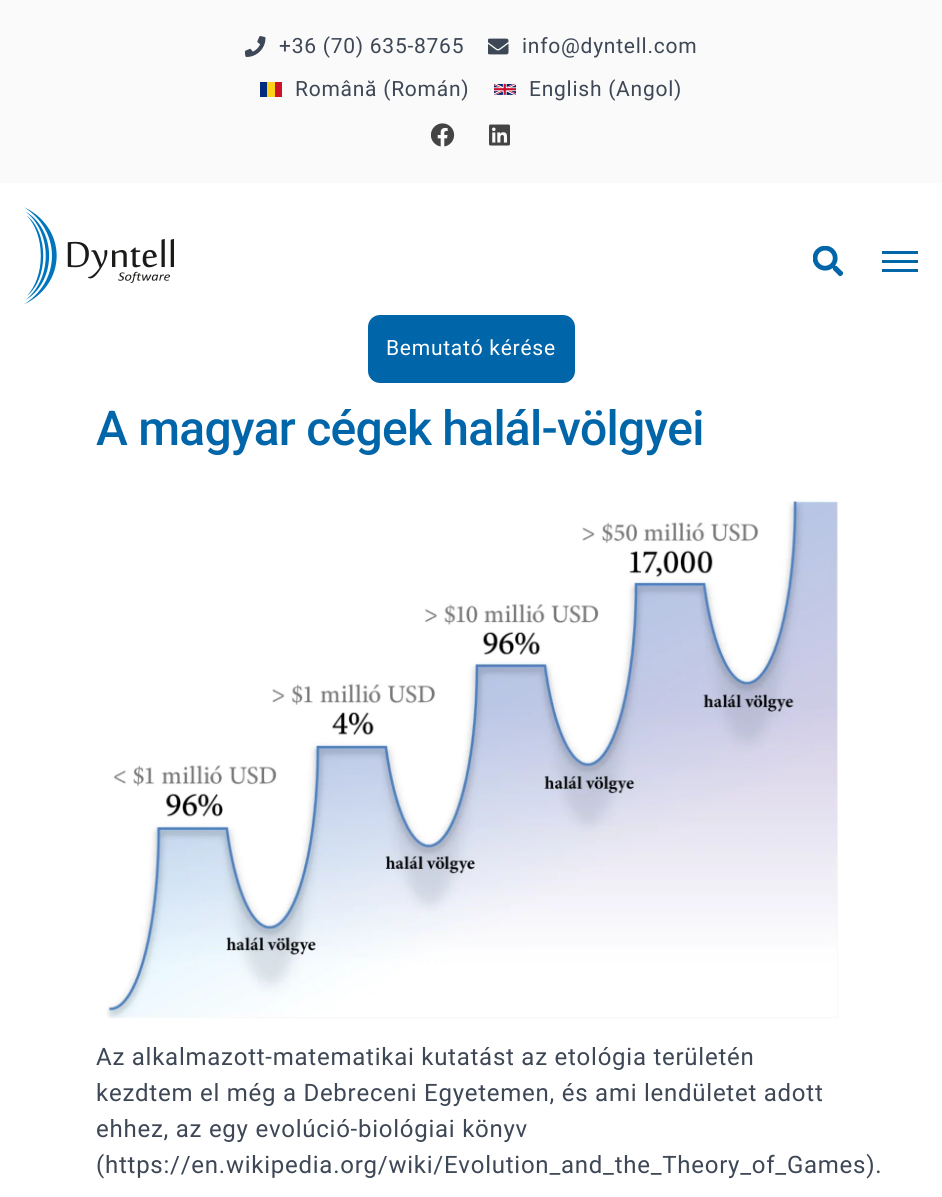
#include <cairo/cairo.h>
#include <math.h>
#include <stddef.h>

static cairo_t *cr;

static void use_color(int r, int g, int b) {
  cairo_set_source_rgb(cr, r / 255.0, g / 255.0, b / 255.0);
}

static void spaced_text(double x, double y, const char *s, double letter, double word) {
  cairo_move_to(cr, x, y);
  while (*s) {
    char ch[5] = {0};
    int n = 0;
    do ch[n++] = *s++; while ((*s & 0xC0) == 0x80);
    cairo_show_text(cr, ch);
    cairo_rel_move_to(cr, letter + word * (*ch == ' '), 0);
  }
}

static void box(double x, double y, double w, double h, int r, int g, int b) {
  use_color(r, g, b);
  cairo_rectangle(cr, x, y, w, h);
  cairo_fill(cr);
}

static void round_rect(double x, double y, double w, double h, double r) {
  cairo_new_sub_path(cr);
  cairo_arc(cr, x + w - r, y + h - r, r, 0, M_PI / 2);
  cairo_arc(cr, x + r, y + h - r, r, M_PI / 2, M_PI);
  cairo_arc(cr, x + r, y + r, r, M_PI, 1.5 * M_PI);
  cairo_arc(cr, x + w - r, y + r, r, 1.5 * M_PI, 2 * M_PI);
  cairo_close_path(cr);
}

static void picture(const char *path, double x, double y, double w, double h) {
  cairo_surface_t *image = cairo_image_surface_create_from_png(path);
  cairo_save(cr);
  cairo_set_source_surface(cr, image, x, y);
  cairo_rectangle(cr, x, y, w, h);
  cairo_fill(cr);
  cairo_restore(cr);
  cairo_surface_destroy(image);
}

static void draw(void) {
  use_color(255, 255, 255);
  cairo_paint(cr);
  box(0, 0, 942, 183, 250, 250, 250);
  picture("img_01.png", 245, 36, 21, 21);
  picture("img_02.png", 488, 38, 21, 17);
  box(260, 82, 7, 15, 0, 43, 127);
  box(267, 82, 8, 15, 252, 209, 22);
  box(275, 82, 7, 15, 206, 17, 38);
  picture("img_03.png", 494, 83, 22, 12);
  picture("img_04.png", 431, 123, 24, 24);
  picture("img_05.png", 489, 124, 21, 22);
  picture("img_06.png", 24, 207, 150, 97);
  picture("img_07.png", 813, 246, 30, 30);
  box(882, 260, 36, 3, 0, 102, 169);
  box(882, 251, 36, 3, 0, 102, 169);
  box(882, 269, 36, 3, 0, 102, 169);
  round_rect(368, 315, 207, 68, 12);
  cairo_fill(cr);
  picture("img_08.png", 106, 497, 732, 522);
  cairo_select_font_face(cr, "Roboto", CAIRO_FONT_SLANT_NORMAL, CAIRO_FONT_WEIGHT_NORMAL);
  cairo_set_font_size(cr, 21);
  use_color(62, 71, 86);
  spaced_text(279, 53, "+36 (70) 635-8765", 0.75, 0);
  spaced_text(522, 53, "info@dyntell.com", 0.75, 0);
  spaced_text(295, 96, "Română (Román)", 0.75, 0);
  spaced_text(529, 96, "English (Angol)", 0.75, 0);
  use_color(255, 255, 255);
  spaced_text(386, 355, "Bemutató kérése", 0.75, 0);
  cairo_select_font_face(cr, "Roboto Medium", CAIRO_FONT_SLANT_NORMAL, CAIRO_FONT_WEIGHT_NORMAL);
  cairo_set_font_size(cr, 48);
  use_color(0, 102, 169);
  spaced_text(96, 445, "A magyar cégek halál-völgyei", -0.75, 0);
  cairo_select_font_face(cr, "Roboto", CAIRO_FONT_SLANT_NORMAL, CAIRO_FONT_WEIGHT_NORMAL);
  cairo_set_font_size(cr, 24);
  use_color(62, 71, 86);
  spaced_text(96, 1065, "Az alkalmazott-matematikai kutatást az etológia területén", 0.75, 0);
  spaced_text(96, 1101, "kezdtem el még a Debreceni Egyetemen, és ami lendületet adott", 0.75, 0);
  spaced_text(96, 1137, "ehhez, az egy evolúció-biológiai könyv", 0.75, 0);
  spaced_text(96, 1173, "(https://en.wikipedia.org/wiki/Evolution_and_the_Theory_of_Games).", 0.75, 0);
}

int main(void) {
  cairo_surface_t *surface = cairo_image_surface_create(CAIRO_FORMAT_RGB24, 942, 1197);
  cr = cairo_create(surface);
  cairo_font_options_t *options = cairo_font_options_create();
  cairo_font_options_set_hint_metrics(options, CAIRO_HINT_METRICS_OFF);
  cairo_font_options_set_hint_style(options, CAIRO_HINT_STYLE_NONE);
  cairo_set_font_options(cr, options);
  cairo_set_miter_limit(cr, 4);
  draw();
  cairo_surface_write_to_png(surface, "out.png");
  cairo_font_options_destroy(options);
  cairo_destroy(cr);
  cairo_surface_destroy(surface);
  return 0;
}
